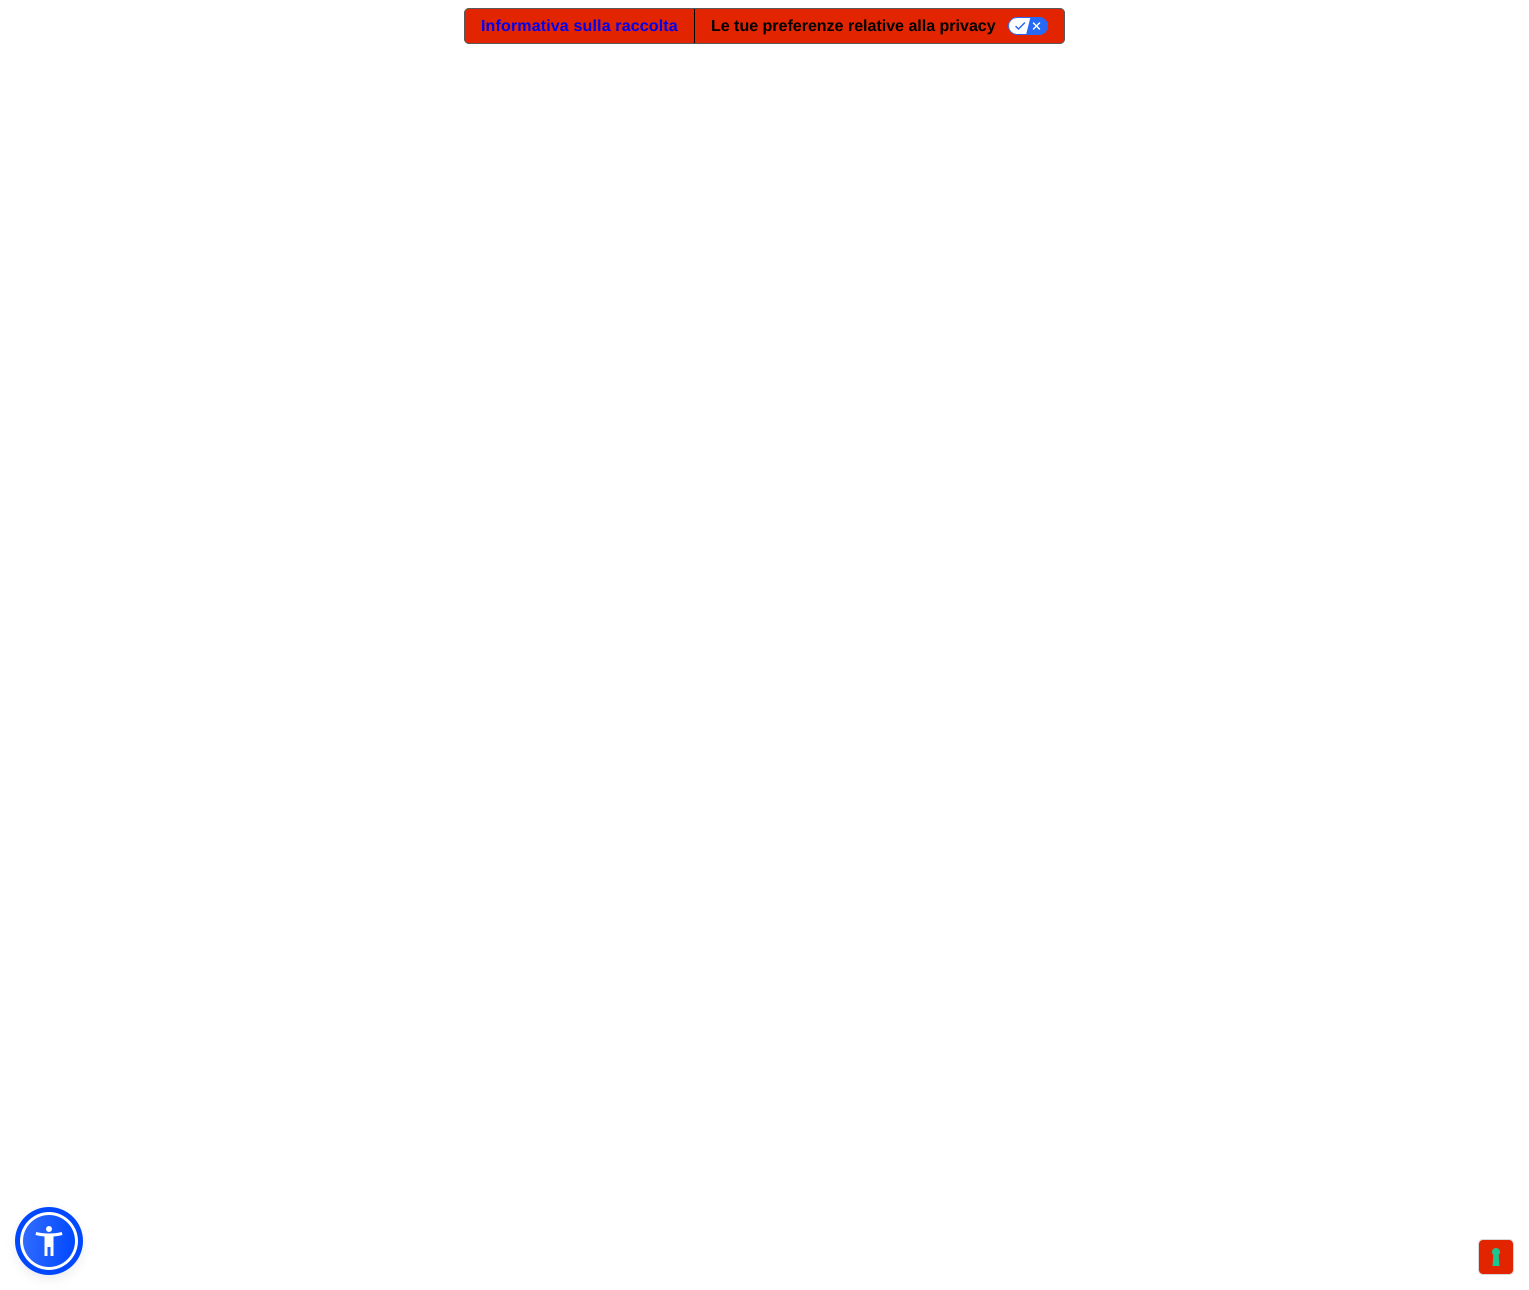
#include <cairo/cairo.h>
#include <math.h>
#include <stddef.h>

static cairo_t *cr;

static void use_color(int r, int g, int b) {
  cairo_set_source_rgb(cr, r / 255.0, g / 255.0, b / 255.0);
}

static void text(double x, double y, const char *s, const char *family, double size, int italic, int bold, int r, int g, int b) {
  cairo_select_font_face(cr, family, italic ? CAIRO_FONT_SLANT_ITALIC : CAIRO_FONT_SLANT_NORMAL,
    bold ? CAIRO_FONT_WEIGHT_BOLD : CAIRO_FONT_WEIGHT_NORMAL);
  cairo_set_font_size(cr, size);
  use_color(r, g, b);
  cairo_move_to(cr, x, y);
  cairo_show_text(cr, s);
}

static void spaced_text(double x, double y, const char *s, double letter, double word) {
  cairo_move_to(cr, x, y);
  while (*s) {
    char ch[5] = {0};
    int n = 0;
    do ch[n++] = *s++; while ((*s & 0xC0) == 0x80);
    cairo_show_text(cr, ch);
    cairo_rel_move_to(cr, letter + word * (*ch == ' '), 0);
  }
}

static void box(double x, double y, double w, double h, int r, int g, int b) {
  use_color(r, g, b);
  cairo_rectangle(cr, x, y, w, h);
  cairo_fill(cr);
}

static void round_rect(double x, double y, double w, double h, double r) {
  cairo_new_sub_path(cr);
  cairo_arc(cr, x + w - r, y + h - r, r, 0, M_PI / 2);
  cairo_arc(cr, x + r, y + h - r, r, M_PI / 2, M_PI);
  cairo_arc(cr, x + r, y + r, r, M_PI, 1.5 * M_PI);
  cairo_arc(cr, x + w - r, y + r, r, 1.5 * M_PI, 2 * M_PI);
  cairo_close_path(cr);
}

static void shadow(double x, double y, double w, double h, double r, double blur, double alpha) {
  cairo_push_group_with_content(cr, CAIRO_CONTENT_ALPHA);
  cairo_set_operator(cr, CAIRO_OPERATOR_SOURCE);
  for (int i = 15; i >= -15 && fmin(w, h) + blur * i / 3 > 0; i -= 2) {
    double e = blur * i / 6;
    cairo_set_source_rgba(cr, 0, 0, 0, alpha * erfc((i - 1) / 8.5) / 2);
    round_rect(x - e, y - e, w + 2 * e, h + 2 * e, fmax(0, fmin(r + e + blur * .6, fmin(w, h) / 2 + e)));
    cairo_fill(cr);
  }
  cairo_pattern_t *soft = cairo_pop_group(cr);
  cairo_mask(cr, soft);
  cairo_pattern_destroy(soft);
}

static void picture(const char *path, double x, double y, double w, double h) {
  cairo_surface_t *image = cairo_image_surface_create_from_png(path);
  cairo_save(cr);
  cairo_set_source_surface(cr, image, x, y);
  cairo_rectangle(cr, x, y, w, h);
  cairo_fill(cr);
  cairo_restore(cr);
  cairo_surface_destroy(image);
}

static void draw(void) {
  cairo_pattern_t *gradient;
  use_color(255, 255, 255);
  cairo_paint(cr);
  use_color(227, 36, 0);
  round_rect(464.5, 8.5, 600, 35, 4.5);
  cairo_fill_preserve(cr);
  use_color(89, 89, 89);
  cairo_set_line_width(cr, 1);
  cairo_stroke(cr);
  box(694, 9, 1, 34, 0, 0, 0);
  picture("img_01.png", 1008, 17, 40, 18);
  use_color(93, 100, 148);
  shadow(20, 1214, 58, 58, 29, 2, 0.2);
  use_color(37, 44, 97);
  shadow(20, 1217, 58, 58, 29, 7.5, 0.15);
  cairo_save(cr);
  round_rect(20, 1212, 58, 58, 29);
  cairo_clip(cr);
  gradient = cairo_pattern_create_linear(21, 1238, 77, 1244);
  cairo_pattern_add_color_stop_rgba(gradient, 0, 0.196, 0.424, 1, 1);
  cairo_pattern_add_color_stop_rgba(gradient, 1, 0, 0.282, 1, 1);
  cairo_set_source(cr, gradient);
  cairo_pattern_destroy(gradient);
  cairo_rectangle(cr, 23, 1215, 52, 52);
  cairo_fill(cr);
  cairo_restore(cr);
  cairo_arc(cr, 49, 1241, 27.5, 0, 2 * M_PI);
  use_color(255, 255, 255);
  cairo_set_line_width(cr, 3);
  cairo_stroke(cr);
  cairo_arc(cr, 49, 1241, 31.5, 0, 2 * M_PI);
  use_color(0, 72, 255);
  cairo_set_line_width(cr, 5);
  cairo_stroke(cr);
  picture("img_02.png", 35, 1226, 28, 30);
  round_rect(1478.5, 1239.5, 35, 35, 4.5);
  use_color(217, 217, 217);
  cairo_set_line_width(cr, 1);
  cairo_stroke(cr);
  use_color(227, 36, 0);
  round_rect(1479, 1240, 34, 34, 4);
  cairo_fill(cr);
  picture("img_03.png", 1492, 1248, 8, 18);
  cairo_select_font_face(cr, "Liberation Sans", CAIRO_FONT_SLANT_NORMAL, CAIRO_FONT_WEIGHT_BOLD);
  cairo_set_font_size(cr, 16);
  use_color(0, 0, 238);
  spaced_text(481, 31, "Informativa sulla raccolta", 0.15, 0);
  text(711, 31, "Le tue preferenze relative alla privacy", "Liberation Sans", 16, 0, 1, 0, 0, 0);
}

int main(void) {
  cairo_surface_t *surface = cairo_image_surface_create(CAIRO_FORMAT_RGB24, 1529, 1290);
  cr = cairo_create(surface);
  cairo_font_options_t *options = cairo_font_options_create();
  cairo_font_options_set_hint_metrics(options, CAIRO_HINT_METRICS_OFF);
  cairo_font_options_set_hint_style(options, CAIRO_HINT_STYLE_NONE);
  cairo_set_font_options(cr, options);
  cairo_set_miter_limit(cr, 4);
  draw();
  cairo_surface_write_to_png(surface, "out.png");
  cairo_font_options_destroy(options);
  cairo_destroy(cr);
  cairo_surface_destroy(surface);
  return 0;
}
